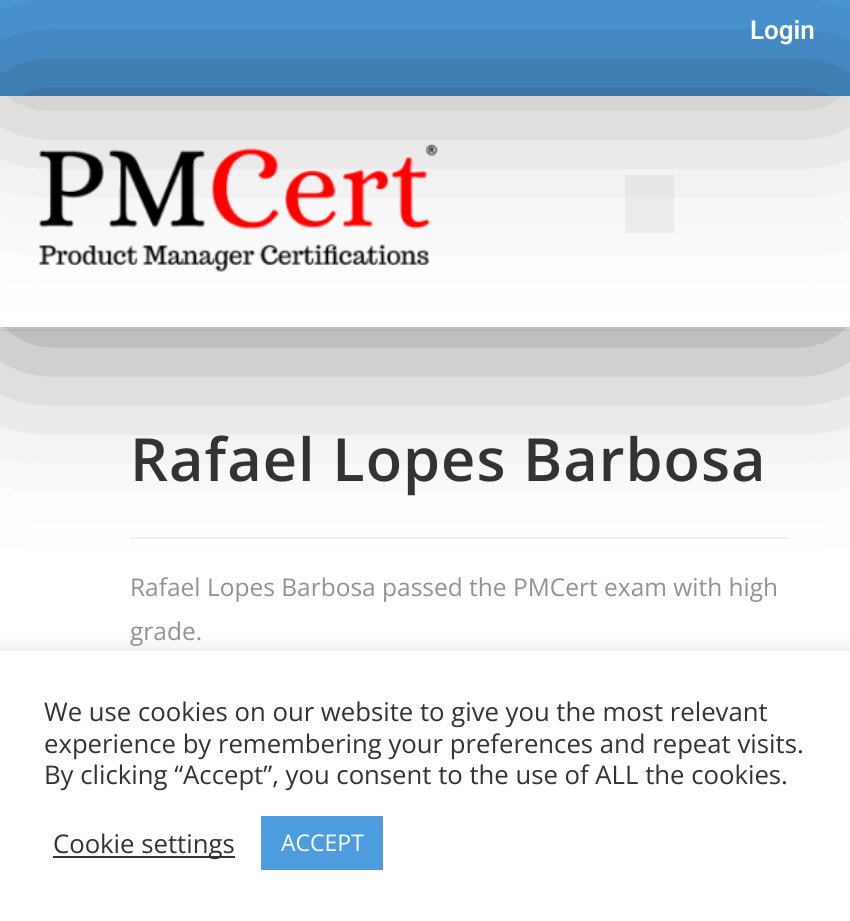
#include <cairo/cairo.h>
#include <math.h>
#include <stddef.h>

static cairo_t *cr;

static void use_color(int r, int g, int b) {
  cairo_set_source_rgb(cr, r / 255.0, g / 255.0, b / 255.0);
}

static void text(double x, double y, const char *s, const char *family, double size, int italic, int bold, int r, int g, int b) {
  cairo_select_font_face(cr, family, italic ? CAIRO_FONT_SLANT_ITALIC : CAIRO_FONT_SLANT_NORMAL,
    bold ? CAIRO_FONT_WEIGHT_BOLD : CAIRO_FONT_WEIGHT_NORMAL);
  cairo_set_font_size(cr, size);
  use_color(r, g, b);
  cairo_move_to(cr, x, y);
  cairo_show_text(cr, s);
}

static void spaced_text(double x, double y, const char *s, double letter, double word) {
  cairo_move_to(cr, x, y);
  while (*s) {
    char ch[5] = {0};
    int n = 0;
    do ch[n++] = *s++; while ((*s & 0xC0) == 0x80);
    cairo_show_text(cr, ch);
    cairo_rel_move_to(cr, letter + word * (*ch == ' '), 0);
  }
}

static void box(double x, double y, double w, double h, int r, int g, int b) {
  use_color(r, g, b);
  cairo_rectangle(cr, x, y, w, h);
  cairo_fill(cr);
}

static void round_rect(double x, double y, double w, double h, double r) {
  cairo_new_sub_path(cr);
  cairo_arc(cr, x + w - r, y + h - r, r, 0, M_PI / 2);
  cairo_arc(cr, x + r, y + h - r, r, M_PI / 2, M_PI);
  cairo_arc(cr, x + r, y + r, r, M_PI, 1.5 * M_PI);
  cairo_arc(cr, x + w - r, y + r, r, 1.5 * M_PI, 2 * M_PI);
  cairo_close_path(cr);
}

static void shadow(double x, double y, double w, double h, double r, double blur, double alpha) {
  cairo_push_group_with_content(cr, CAIRO_CONTENT_ALPHA);
  cairo_set_operator(cr, CAIRO_OPERATOR_SOURCE);
  for (int i = 15; i >= -15 && fmin(w, h) + blur * i / 3 > 0; i -= 2) {
    double e = blur * i / 6;
    cairo_set_source_rgba(cr, 0, 0, 0, alpha * erfc((i - 1) / 8.5) / 2);
    round_rect(x - e, y - e, w + 2 * e, h + 2 * e, fmax(0, fmin(r + e + blur * .6, fmin(w, h) / 2 + e)));
    cairo_fill(cr);
  }
  cairo_pattern_t *soft = cairo_pop_group(cr);
  cairo_mask(cr, soft);
  cairo_pattern_destroy(soft);
}

static void picture(const char *path, double x, double y, double w, double h) {
  cairo_surface_t *image = cairo_image_surface_create_from_png(path);
  cairo_save(cr);
  cairo_set_source_surface(cr, image, x, y);
  cairo_rectangle(cr, x, y, w, h);
  cairo_fill(cr);
  cairo_restore(cr);
  cairo_surface_destroy(image);
}

static void draw(void) {
  use_color(255, 255, 255);
  cairo_paint(cr);
  box(0, 329, 850, 2, 241, 241, 241);
  use_color(0, 0, 0);
  shadow(0, 0, 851, 96, 0, 87.5, 0.5);
  box(0, 0, 850, 96, 77, 156, 221);
  box(130, 537, 658, 2, 241, 241, 241);
  cairo_save(cr);
  cairo_set_fill_rule(cr, CAIRO_FILL_RULE_EVEN_ODD);
  cairo_new_path(cr);
  cairo_move_to(cr, 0, 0);
  cairo_line_to(cr, 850, 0);
  cairo_line_to(cr, 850, 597);
  cairo_line_to(cr, 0, 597);
  cairo_close_path(cr);
  cairo_move_to(cr, 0, 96);
  cairo_line_to(cr, 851, 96);
  cairo_line_to(cr, 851, 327);
  cairo_line_to(cr, 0, 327);
  cairo_close_path(cr);
  cairo_clip(cr);
  use_color(0, 0, 0);
  shadow(0, 102, 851, 231, 0, 87.5, 0.5);
  cairo_restore(cr);
  cairo_set_source_rgba(cr, 1, 1, 1, 0.33);
  cairo_rectangle(cr, 0, 96, 850, 131);
  cairo_fill(cr);
  picture("img_01.png", 38, 144, 400, 128);
  cairo_set_source_rgba(cr, 0, 0, 0, 0.05);
  cairo_rectangle(cr, 625, 175, 49, 58);
  cairo_fill(cr);
  use_color(172, 171, 171);
  shadow(0, 649, 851, 272, 0, 9, 0.3);
  box(0, 651, 850, 270, 255, 255, 255);
  box(53, 856, 182, 2, 51, 51, 51);
  box(261, 816, 122, 54, 77, 156, 222);
  text(750, 39, "Login", "Roboto SemiBold", 26, 0, 0, 255, 255, 255);
  cairo_select_font_face(cr, "Open Sans SemiBold", CAIRO_FONT_SLANT_NORMAL, CAIRO_FONT_WEIGHT_NORMAL);
  cairo_set_font_size(cr, 59.5);
  use_color(51, 51, 51);
  spaced_text(130, 481, "Rafael Lopes Barbosa", 1.05, 0);
  text(130, 596, "Rafael Lopes Barbosa passed the PMCert exam with high", "Open Sans", 24.5, 0, 0, 146, 146, 146);
  text(130, 640, "grade.", "Open Sans", 24.5, 0, 0, 146, 146, 146);
  text(44, 721, "We use cookies on our website to give you the most relevant", "Open Sans", 25.7, 0, 0, 51, 51, 51);
  text(44, 753, "experience by remembering your preferences and repeat visits.", "Open Sans", 25.7, 0, 0, 51, 51, 51);
  text(44, 784, "By clicking “Accept”, you consent to the use of ALL the cookies.", "Open Sans", 25.7, 0, 0, 51, 51, 51);
  text(53, 853, "Cookie settings", "Open Sans", 25.7, 0, 0, 51, 51, 51);
  text(281, 851, "ACCEPT", "Open Sans", 23, 0, 0, 255, 255, 255);
}

int main(void) {
  cairo_surface_t *surface = cairo_image_surface_create(CAIRO_FORMAT_RGB24, 850, 921);
  cr = cairo_create(surface);
  cairo_font_options_t *options = cairo_font_options_create();
  cairo_font_options_set_hint_metrics(options, CAIRO_HINT_METRICS_OFF);
  cairo_font_options_set_hint_style(options, CAIRO_HINT_STYLE_NONE);
  cairo_set_font_options(cr, options);
  cairo_set_miter_limit(cr, 4);
  draw();
  cairo_surface_write_to_png(surface, "out.png");
  cairo_font_options_destroy(options);
  cairo_destroy(cr);
  cairo_surface_destroy(surface);
  return 0;
}
